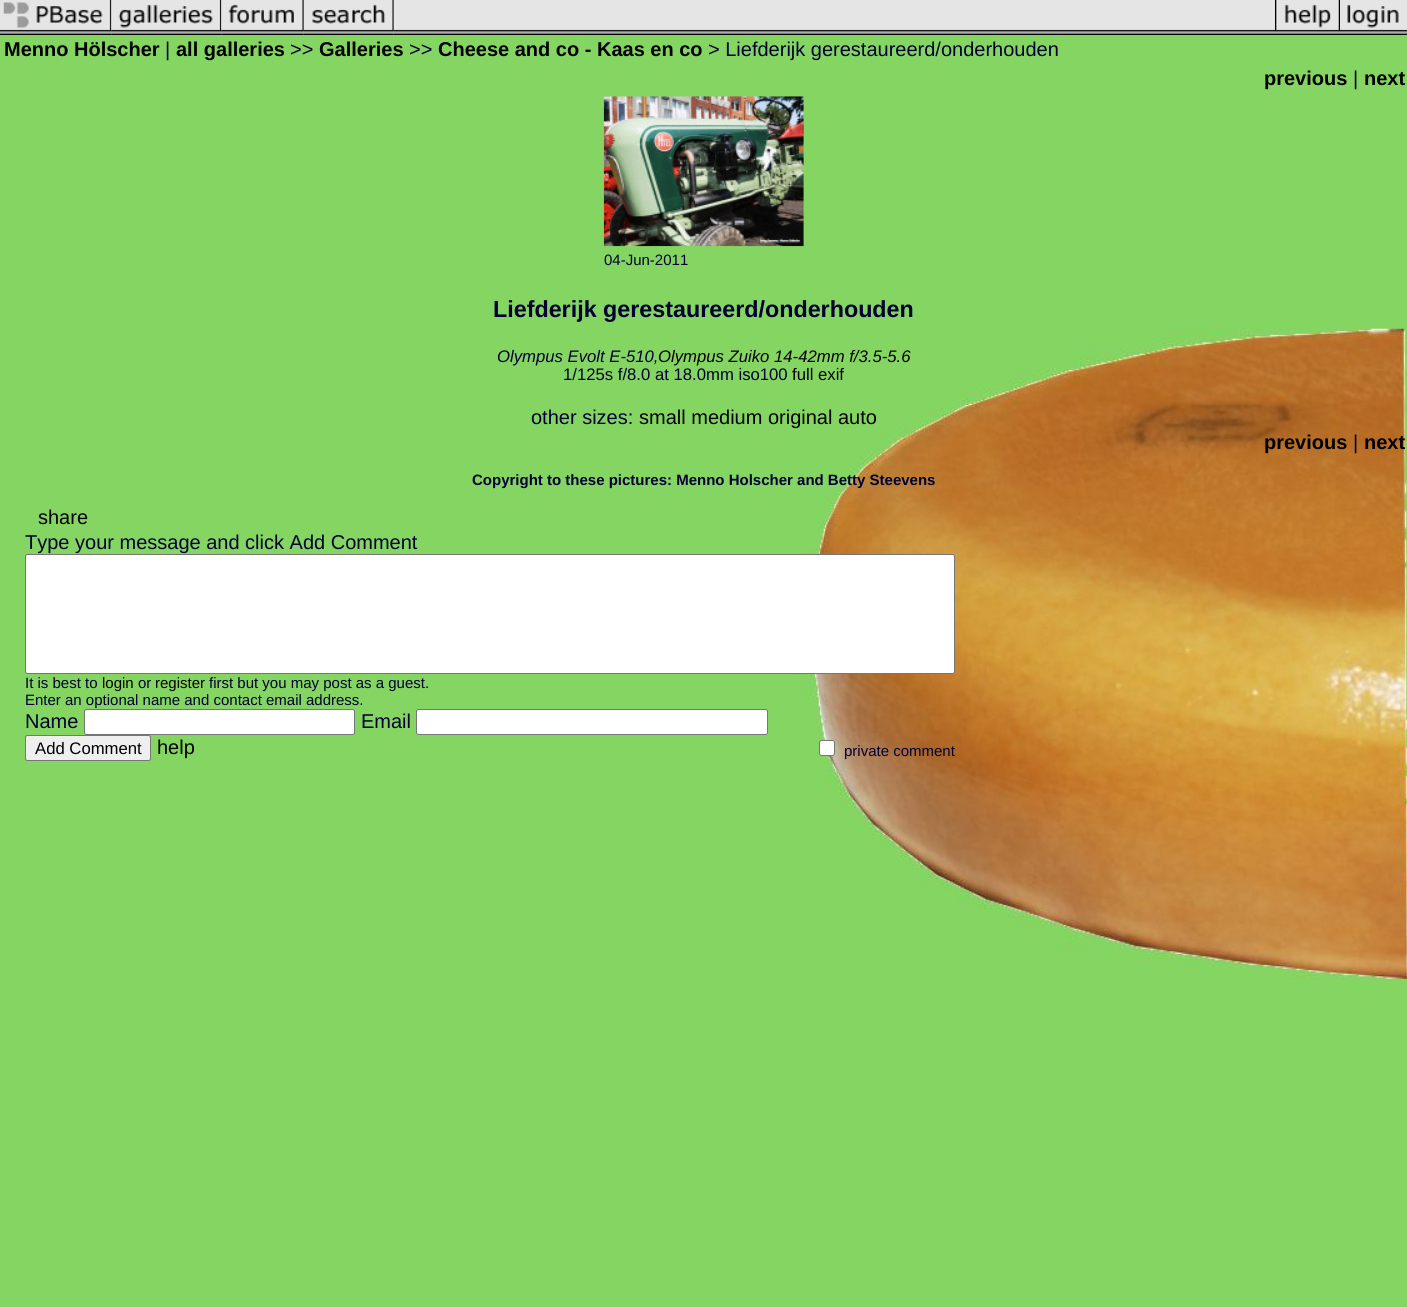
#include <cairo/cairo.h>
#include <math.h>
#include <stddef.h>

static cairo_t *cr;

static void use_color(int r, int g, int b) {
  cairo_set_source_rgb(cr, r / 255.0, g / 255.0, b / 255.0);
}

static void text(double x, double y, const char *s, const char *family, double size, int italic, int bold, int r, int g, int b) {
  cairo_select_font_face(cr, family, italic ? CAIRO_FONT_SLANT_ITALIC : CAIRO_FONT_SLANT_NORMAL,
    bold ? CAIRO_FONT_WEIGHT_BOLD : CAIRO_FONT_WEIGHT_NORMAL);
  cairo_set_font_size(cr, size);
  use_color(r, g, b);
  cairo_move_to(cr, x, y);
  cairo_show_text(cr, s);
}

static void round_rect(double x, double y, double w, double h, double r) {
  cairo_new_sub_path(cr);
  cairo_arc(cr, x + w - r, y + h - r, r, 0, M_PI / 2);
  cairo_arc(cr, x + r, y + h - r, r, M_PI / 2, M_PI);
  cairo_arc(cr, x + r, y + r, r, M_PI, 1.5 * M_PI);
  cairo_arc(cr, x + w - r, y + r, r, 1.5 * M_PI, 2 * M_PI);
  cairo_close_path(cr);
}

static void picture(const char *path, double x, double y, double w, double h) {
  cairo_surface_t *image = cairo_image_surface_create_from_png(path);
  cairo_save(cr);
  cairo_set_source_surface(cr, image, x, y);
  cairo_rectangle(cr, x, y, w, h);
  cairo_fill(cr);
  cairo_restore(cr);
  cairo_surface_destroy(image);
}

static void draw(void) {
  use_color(132, 213, 97);
  cairo_paint(cr);
  picture("img_01.png", 799, 328, 608, 651);
  picture("img_02.png", 0, 0, 112, 35);
  picture("img_03.png", 111, 0, 111, 35);
  picture("img_04.png", 221, 0, 83, 35);
  picture("img_05.png", 303, 0, 91, 35);
  picture("img_06.png", 393, 0, 882, 35);
  picture("img_07.png", 1275, 0, 65, 35);
  picture("img_08.png", 1340, 0, 67, 35);
  picture("img_09.png", 603, 96, 201, 151);
  use_color(255, 255, 255);
  round_rect(25.5, 554.5, 929, 119, 2);
  cairo_fill_preserve(cr);
  use_color(118, 118, 118);
  cairo_set_line_width(cr, 1);
  cairo_stroke(cr);
  use_color(255, 255, 255);
  round_rect(84.5, 709.5, 270, 25, 2);
  cairo_fill_preserve(cr);
  use_color(118, 118, 118);
  cairo_stroke(cr);
  use_color(255, 255, 255);
  round_rect(416.5, 709.5, 351, 25, 2);
  cairo_fill_preserve(cr);
  use_color(118, 118, 118);
  cairo_stroke(cr);
  use_color(239, 239, 239);
  round_rect(25.5, 735.5, 125, 25, 2);
  cairo_fill_preserve(cr);
  use_color(118, 118, 118);
  cairo_stroke(cr);
  use_color(255, 255, 255);
  round_rect(819.5, 740.5, 15, 15, 2);
  cairo_fill_preserve(cr);
  use_color(118, 118, 118);
  cairo_stroke(cr);
  text(4, 56, "Menno Hölscher", "Liberation Sans", 20, 0, 1, 0, 0, 0);
  text(165, 56, "|", "Liberation Sans", 20, 0, 0, 0, 0, 51);
  text(176, 56, "all galleries", "Liberation Sans", 20, 0, 1, 0, 0, 0);
  text(290, 56, ">>", "Liberation Sans", 20, 0, 0, 0, 0, 51);
  text(319, 56, "Galleries", "Liberation Sans", 20, 0, 1, 0, 0, 0);
  text(409, 56, ">>", "Liberation Sans", 20, 0, 0, 0, 0, 51);
  text(438, 56, "Cheese and co - Kaas en co", "Liberation Sans", 20, 0, 1, 0, 0, 0);
  text(708, 56, "> Liefderijk gerestaureerd/onderhouden", "Liberation Sans", 20, 0, 0, 0, 0, 51);
  text(1264, 85, "previous", "Liberation Sans", 20, 0, 1, 0, 0, 0);
  text(1353, 85, "|", "Liberation Sans", 20, 0, 0, 0, 0, 51);
  text(1364, 85, "next", "Liberation Sans", 20, 0, 1, 0, 0, 0);
  text(604, 265, "04-Jun-2011", "Liberation Sans", 15, 0, 0, 0, 0, 51);
  text(493, 317, "Liefderijk gerestaureerd/onderhouden", "Liberation Sans", 23.3, 0, 1, 0, 0, 51);
  text(497, 362, "Olympus Evolt E-510,", "Liberation Sans", 16.7, 1, 0, 0, 0, 51);
  text(658, 362, "Olympus Zuiko 14-42mm f/3.5-5.6", "Liberation Sans", 16.7, 1, 0, 0, 0, 0);
  text(563, 380, "1/125s f/8.0 at 18.0mm iso100", "Liberation Sans", 16.7, 0, 0, 0, 0, 51);
  text(792, 380, "full exif", "Liberation Sans", 16.7, 0, 0, 0, 0, 0);
  text(531, 424, "other sizes:", "Liberation Sans", 20, 0, 0, 0, 0, 51);
  text(639, 424, "small medium original auto", "Liberation Sans", 20, 0, 0, 0, 0, 0);
  text(1264, 449, "previous", "Liberation Sans", 20, 0, 1, 0, 0, 0);
  text(1353, 449, "|", "Liberation Sans", 20, 0, 0, 0, 0, 51);
  text(1364, 449, "next", "Liberation Sans", 20, 0, 1, 0, 0, 0);
  text(472, 485, "Copyright to these pictures: Menno Holscher and Betty Steevens", "Liberation Sans", 15, 0, 1, 0, 0, 51);
  text(38, 524, "share", "Liberation Sans", 20, 0, 0, 0, 0, 0);
  text(25, 549, "Type your message and click Add Comment", "Liberation Sans", 20, 0, 0, 0, 0, 51);
  text(25, 688, "It is best to", "Liberation Sans", 15, 0, 0, 0, 0, 51);
  text(102, 688, "login", "Liberation Sans", 15, 0, 0, 0, 0, 0);
  text(138, 688, "or", "Liberation Sans", 15, 0, 0, 0, 0, 51);
  text(155, 688, "register", "Liberation Sans", 15, 0, 0, 0, 0, 0);
  text(209, 688, "first but you may post as a guest.", "Liberation Sans", 15, 0, 0, 0, 0, 51);
  text(25, 705, "Enter an optional name and contact email address.", "Liberation Sans", 15, 0, 0, 0, 0, 51);
  text(25, 728, "Name", "Liberation Sans", 20, 0, 0, 0, 0, 51);
  text(361, 728, "Email", "Liberation Sans", 20, 0, 0, 0, 0, 51);
  text(35, 754, "Add Comment", "Liberation Sans", 16.7, 0, 0, 0, 0, 0);
  text(157, 754, "help", "Liberation Sans", 20, 0, 0, 0, 0, 0);
  text(844, 756, "private comment", "Liberation Sans", 15, 0, 0, 0, 0, 51);
}

int main(void) {
  cairo_surface_t *surface = cairo_image_surface_create(CAIRO_FORMAT_RGB24, 1407, 1307);
  cr = cairo_create(surface);
  cairo_font_options_t *options = cairo_font_options_create();
  cairo_font_options_set_hint_metrics(options, CAIRO_HINT_METRICS_OFF);
  cairo_font_options_set_hint_style(options, CAIRO_HINT_STYLE_NONE);
  cairo_set_font_options(cr, options);
  cairo_set_miter_limit(cr, 4);
  draw();
  cairo_surface_write_to_png(surface, "out.png");
  cairo_font_options_destroy(options);
  cairo_destroy(cr);
  cairo_surface_destroy(surface);
  return 0;
}
